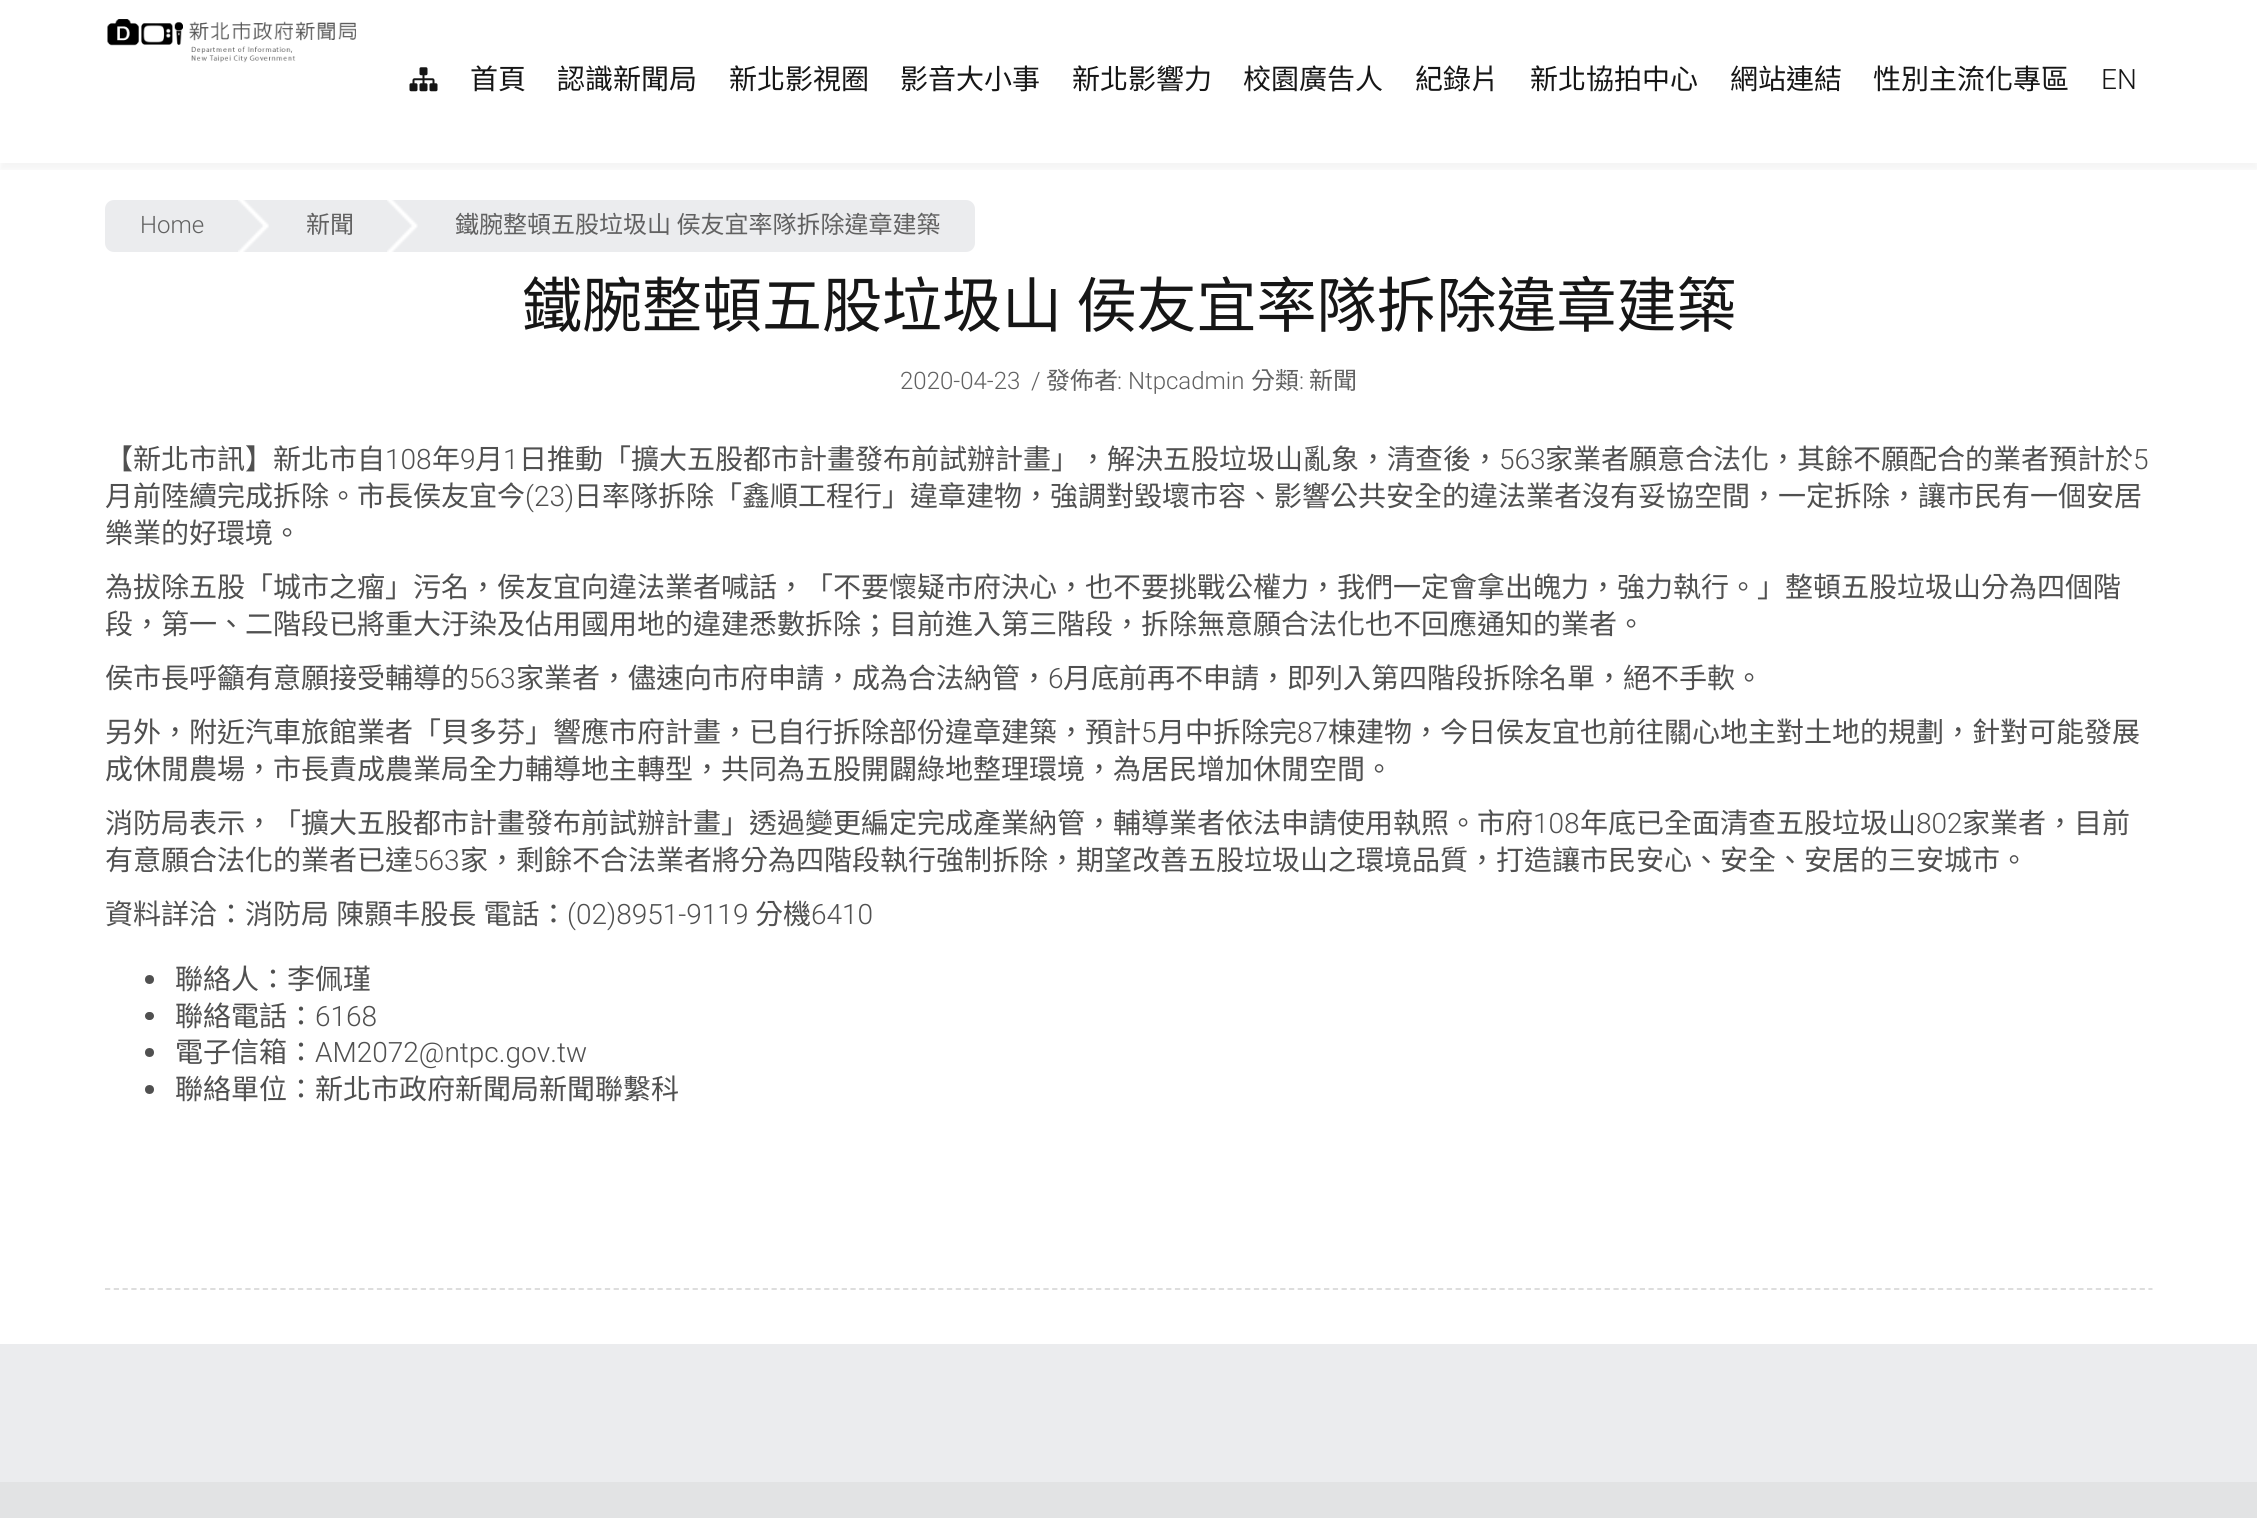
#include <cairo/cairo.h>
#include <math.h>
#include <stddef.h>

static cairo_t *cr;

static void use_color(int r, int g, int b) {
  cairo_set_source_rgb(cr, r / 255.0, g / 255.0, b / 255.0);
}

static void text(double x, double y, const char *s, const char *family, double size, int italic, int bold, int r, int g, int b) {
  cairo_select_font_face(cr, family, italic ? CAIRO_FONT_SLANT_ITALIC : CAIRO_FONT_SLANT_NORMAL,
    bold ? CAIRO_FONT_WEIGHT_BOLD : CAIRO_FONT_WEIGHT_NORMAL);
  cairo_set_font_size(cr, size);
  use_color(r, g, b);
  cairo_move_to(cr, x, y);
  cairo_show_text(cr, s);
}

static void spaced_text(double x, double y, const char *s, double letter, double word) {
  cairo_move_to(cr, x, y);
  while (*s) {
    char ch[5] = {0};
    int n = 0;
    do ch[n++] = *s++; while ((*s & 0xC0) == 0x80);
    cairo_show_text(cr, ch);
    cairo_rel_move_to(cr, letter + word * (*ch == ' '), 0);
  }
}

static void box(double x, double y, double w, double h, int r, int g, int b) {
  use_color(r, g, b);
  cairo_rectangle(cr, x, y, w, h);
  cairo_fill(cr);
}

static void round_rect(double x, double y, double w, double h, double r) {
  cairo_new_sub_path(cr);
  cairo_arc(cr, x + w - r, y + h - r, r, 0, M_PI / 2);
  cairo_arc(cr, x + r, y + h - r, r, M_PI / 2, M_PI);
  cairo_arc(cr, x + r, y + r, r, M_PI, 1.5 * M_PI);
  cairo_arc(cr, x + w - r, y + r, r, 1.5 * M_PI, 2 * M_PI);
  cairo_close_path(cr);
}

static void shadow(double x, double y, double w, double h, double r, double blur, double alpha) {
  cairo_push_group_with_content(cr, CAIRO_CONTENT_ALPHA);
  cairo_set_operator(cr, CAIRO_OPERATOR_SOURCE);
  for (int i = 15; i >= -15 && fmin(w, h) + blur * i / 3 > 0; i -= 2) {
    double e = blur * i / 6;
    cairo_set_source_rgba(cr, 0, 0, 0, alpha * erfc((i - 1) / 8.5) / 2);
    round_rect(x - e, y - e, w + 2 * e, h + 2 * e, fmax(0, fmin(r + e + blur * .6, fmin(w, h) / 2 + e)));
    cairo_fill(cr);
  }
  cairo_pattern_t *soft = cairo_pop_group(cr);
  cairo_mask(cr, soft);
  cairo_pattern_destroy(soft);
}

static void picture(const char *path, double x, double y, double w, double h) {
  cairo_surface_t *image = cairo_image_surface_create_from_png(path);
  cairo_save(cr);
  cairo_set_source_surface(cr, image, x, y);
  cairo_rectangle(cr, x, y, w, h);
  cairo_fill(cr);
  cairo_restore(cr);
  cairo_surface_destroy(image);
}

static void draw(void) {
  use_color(255, 255, 255);
  cairo_paint(cr);
  picture("img_01.png", 107, 19, 249, 44);
  picture("img_02.png", 409, 67, 29, 25);
  cairo_save(cr);
  cairo_rectangle(cr, 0, 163, 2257, 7);
  cairo_clip(cr);
  use_color(0, 0, 0);
  shadow(0, 156, 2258, 14, 0, 2.5, 0.04);
  cairo_restore(cr);
  use_color(235, 236, 238);
  cairo_new_path(cr);
  cairo_move_to(cr, 114, 200);
  cairo_line_to(cr, 271, 200);
  cairo_line_to(cr, 271, 252);
  cairo_line_to(cr, 114, 252);
  cairo_curve_to(cr, 109, 252, 105, 248, 105, 243);
  cairo_line_to(cr, 105, 209);
  cairo_curve_to(cr, 105, 204, 109, 200, 114, 200);
  cairo_close_path(cr);
  cairo_fill(cr);
  picture("img_03.png", 238, 200, 31, 52);
  box(271, 200, 149, 52, 235, 236, 238);
  picture("img_04.png", 387, 200, 31, 52);
  cairo_new_path(cr);
  cairo_move_to(cr, 420, 200);
  cairo_line_to(cr, 966, 200);
  cairo_curve_to(cr, 971, 200, 975, 204, 975, 209);
  cairo_line_to(cr, 975, 243);
  cairo_curve_to(cr, 975, 248, 971, 252, 966, 252);
  cairo_line_to(cr, 420, 252);
  cairo_close_path(cr);
  cairo_fill(cr);
  cairo_new_path(cr);
  cairo_move_to(cr, 105, 1289);
  cairo_line_to(cr, 2152.5, 1289);
  use_color(217, 217, 217);
  cairo_set_line_width(cr, 1.8);
  cairo_set_dash(cr, (double[]){5.25, 3.52}, 2, 0);
  cairo_stroke(cr);
  use_color(80, 80, 80);
  cairo_arc(cr, 149.5, 979.5, 4.5, 0, 2 * M_PI);
  cairo_fill(cr);
  round_rect(145, 1012, 9, 8, 4);
  cairo_fill(cr);
  cairo_arc(cr, 149.5, 1052.5, 4.5, 0, 2 * M_PI);
  cairo_fill(cr);
  cairo_arc(cr, 149.5, 1089.5, 4.5, 0, 2 * M_PI);
  cairo_fill(cr);
  box(0, 1482, 2257, 36, 226, 227, 228);
  box(0, 1344, 2257, 138, 235, 236, 238);
  text(470, 89, "首頁", "Noto Sans CJK TC", 28, 0, 0, 22, 22, 22);
  text(557, 89, "認識新聞局", "Noto Sans CJK TC", 28, 0, 0, 22, 22, 22);
  text(729, 89, "新北影視圈", "Noto Sans CJK TC", 28, 0, 0, 22, 22, 22);
  text(900, 89, "影音大小事", "Noto Sans CJK TC", 28, 0, 0, 22, 22, 22);
  text(1072, 89, "新北影響力", "Noto Sans CJK TC", 28, 0, 0, 22, 22, 22);
  text(1243, 89, "校園廣告人", "Noto Sans CJK TC", 28, 0, 0, 22, 22, 22);
  text(1415, 89, "紀錄片", "Noto Sans CJK TC", 28, 0, 0, 22, 22, 22);
  text(1530, 89, "新北協拍中心", "Noto Sans CJK TC", 28, 0, 0, 22, 22, 22);
  text(1730, 89, "網站連結", "Noto Sans CJK TC", 28, 0, 0, 22, 22, 22);
  text(1873, 89, "性別主流化專區", "Noto Sans CJK TC", 28, 0, 0, 22, 22, 22);
  text(2101, 89, "EN", "Roboto Light", 28, 0, 0, 22, 22, 22);
  text(140, 233, "Home", "Roboto Light", 24, 0, 0, 97, 97, 97);
  text(306, 233, "新聞", "Noto Sans CJK TC", 24, 0, 0, 97, 97, 97);
  text(455, 233, "鐵腕整頓五股垃圾山 侯友宜率隊拆除違章建築", "Noto Sans CJK TC", 24, 0, 0, 97, 97, 97);
  cairo_set_font_size(cr, 60);
  use_color(22, 22, 22);
  spaced_text(522, 327, "鐵腕整頓五股垃圾山 侯友宜率隊拆除違章建築", 0, 1);
  text(900, 389, "2020-04-23", "Roboto Light", 24, 0, 0, 97, 97, 97);
  text(1031, 389, "/", "Roboto Light", 24, 0, 0, 97, 97, 97);
  text(1046, 389, "發佈者", "Noto Sans CJK TC", 24, 0, 0, 97, 97, 97);
  text(1117, 389, ": Ntpcadmin", "Roboto Light", 24, 0, 0, 97, 97, 97);
  text(1251, 389, "分類", "Noto Sans CJK TC", 24, 0, 0, 97, 97, 97);
  text(1299, 389, ":", "Roboto Light", 24, 0, 0, 97, 97, 97);
  text(1309, 389, "新聞", "Noto Sans CJK TC", 24, 0, 0, 97, 97, 97);
  text(105, 469, "【新北市訊】新北市自", "Noto Sans CJK TC", 28, 0, 0, 80, 80, 80);
  text(385, 469, "108", "Roboto Light", 28, 0, 0, 80, 80, 80);
  text(432, 469, "年", "Noto Sans CJK TC", 28, 0, 0, 80, 80, 80);
  text(460, 469, "9", "Roboto Light", 28, 0, 0, 80, 80, 80);
  text(475, 469, "月", "Noto Sans CJK TC", 28, 0, 0, 80, 80, 80);
  text(503, 469, "1", "Roboto Light", 28, 0, 0, 80, 80, 80);
  text(519, 469, "日推動「擴大五股都市計畫發布前試辦計畫」，解決五股垃圾山亂象，清查後，", "Noto Sans CJK TC", 28, 0, 0, 80, 80, 80);
  text(1499, 469, "563", "Roboto Light", 28, 0, 0, 80, 80, 80);
  text(1545, 469, "家業者願意合法化，其餘不願配合的業者預計於", "Noto Sans CJK TC", 28, 0, 0, 80, 80, 80);
  text(2133, 469, "5", "Roboto Light", 28, 0, 0, 80, 80, 80);
  text(105, 506, "月前陸續完成拆除。市長侯友宜今", "Noto Sans CJK TC", 28, 0, 0, 80, 80, 80);
  text(525, 506, "(23)", "Roboto Light", 28, 0, 0, 80, 80, 80);
  text(574, 506, "日率隊拆除「鑫順工程行」違章建物，強調對毀壞市容、影響公共安全的違法業者沒有妥協空間，一定拆除，讓市民有一個安居", "Noto Sans CJK TC", 28, 0, 0, 80, 80, 80);
  text(105, 543, "樂業的好環境。", "Noto Sans CJK TC", 28, 0, 0, 80, 80, 80);
  text(105, 597, "為拔除五股「城市之瘤」污名，侯友宜向違法業者喊話，「不要懷疑市府決心，也不要挑戰公權力，我們一定會拿出魄力，強力執行。」整頓五股垃圾山分為四個階", "Noto Sans CJK TC", 28, 0, 0, 80, 80, 80);
  text(105, 634, "段，第一、二階段已將重大汙染及佔用國用地的違建悉數拆除；目前進入第三階段，拆除無意願合法化也不回應通知的業者。", "Noto Sans CJK TC", 28, 0, 0, 80, 80, 80);
  text(105, 688, "侯市長呼籲有意願接受輔導的", "Noto Sans CJK TC", 28, 0, 0, 80, 80, 80);
  text(469, 688, "563", "Roboto Light", 28, 0, 0, 80, 80, 80);
  text(516, 688, "家業者，儘速向市府申請，成為合法納管，", "Noto Sans CJK TC", 28, 0, 0, 80, 80, 80);
  text(1048, 688, "6", "Roboto Light", 28, 0, 0, 80, 80, 80);
  text(1063, 688, "月底前再不申請，即列入第四階段拆除名單，絕不手軟。", "Noto Sans CJK TC", 28, 0, 0, 80, 80, 80);
  text(105, 742, "另外，附近汽車旅館業者「貝多芬」響應市府計畫，已自行拆除部份違章建築，預計", "Noto Sans CJK TC", 28, 0, 0, 80, 80, 80);
  text(1141, 742, "5", "Roboto Light", 28, 0, 0, 80, 80, 80);
  text(1157, 742, "月中拆除完", "Noto Sans CJK TC", 28, 0, 0, 80, 80, 80);
  text(1297, 742, "87", "Roboto Light", 28, 0, 0, 80, 80, 80);
  text(1328, 742, "棟建物，今日侯友宜也前往關心地主對土地的規劃，針對可能發展", "Noto Sans CJK TC", 28, 0, 0, 80, 80, 80);
  text(105, 779, "成休閒農場，市長責成農業局全力輔導地主轉型，共同為五股開闢綠地整理環境，為居民增加休閒空間。", "Noto Sans CJK TC", 28, 0, 0, 80, 80, 80);
  text(105, 833, "消防局表示，「擴大五股都市計畫發布前試辦計畫」透過變更編定完成產業納管，輔導業者依法申請使用執照。市府", "Noto Sans CJK TC", 28, 0, 0, 80, 80, 80);
  text(1533, 833, "108", "Roboto Light", 28, 0, 0, 80, 80, 80);
  text(1580, 833, "年底已全面清查五股垃圾山", "Noto Sans CJK TC", 28, 0, 0, 80, 80, 80);
  text(1916, 833, "802", "Roboto Light", 28, 0, 0, 80, 80, 80);
  text(1962, 833, "家業者，目前", "Noto Sans CJK TC", 28, 0, 0, 80, 80, 80);
  text(105, 870, "有意願合法化的業者已達", "Noto Sans CJK TC", 28, 0, 0, 80, 80, 80);
  text(413, 870, "563", "Roboto Light", 28, 0, 0, 80, 80, 80);
  text(460, 870, "家，剩餘不合法業者將分為四階段執行強制拆除，期望改善五股垃圾山之環境品質，打造讓市民安心、安全、安居的三安城市。", "Noto Sans CJK TC", 28, 0, 0, 80, 80, 80);
  spaced_text(105, 924, "資料詳洽：消防局 陳顥丰股長 電話：", 0, 1);
  text(567, 924, "(02)8951-9119", "Roboto Light", 28, 0, 0, 80, 80, 80);
  text(755, 924, "分機", "Noto Sans CJK TC", 28, 0, 0, 80, 80, 80);
  text(811, 924, "6410", "Roboto Light", 28, 0, 0, 80, 80, 80);
  text(175, 989, "聯絡人：李佩瑾", "Noto Sans CJK TC", 28, 0, 0, 80, 80, 80);
  text(175, 1026, "聯絡電話：", "Noto Sans CJK TC", 28, 0, 0, 80, 80, 80);
  text(315, 1026, "6168", "Roboto Light", 28, 0, 0, 80, 80, 80);
  text(175, 1062, "電子信箱：", "Noto Sans CJK TC", 28, 0, 0, 80, 80, 80);
  text(315, 1062, "AM2072@ntpc.gov.tw", "Roboto Light", 28, 0, 0, 80, 80, 80);
  text(175, 1099, "聯絡單位：新北市政府新聞局新聞聯繫科", "Noto Sans CJK TC", 28, 0, 0, 80, 80, 80);
}

int main(void) {
  cairo_surface_t *surface = cairo_image_surface_create(CAIRO_FORMAT_RGB24, 2257, 1518);
  cr = cairo_create(surface);
  cairo_font_options_t *options = cairo_font_options_create();
  cairo_font_options_set_hint_metrics(options, CAIRO_HINT_METRICS_OFF);
  cairo_font_options_set_hint_style(options, CAIRO_HINT_STYLE_NONE);
  cairo_set_font_options(cr, options);
  cairo_set_miter_limit(cr, 4);
  draw();
  cairo_surface_write_to_png(surface, "out.png");
  cairo_font_options_destroy(options);
  cairo_destroy(cr);
  cairo_surface_destroy(surface);
  return 0;
}
